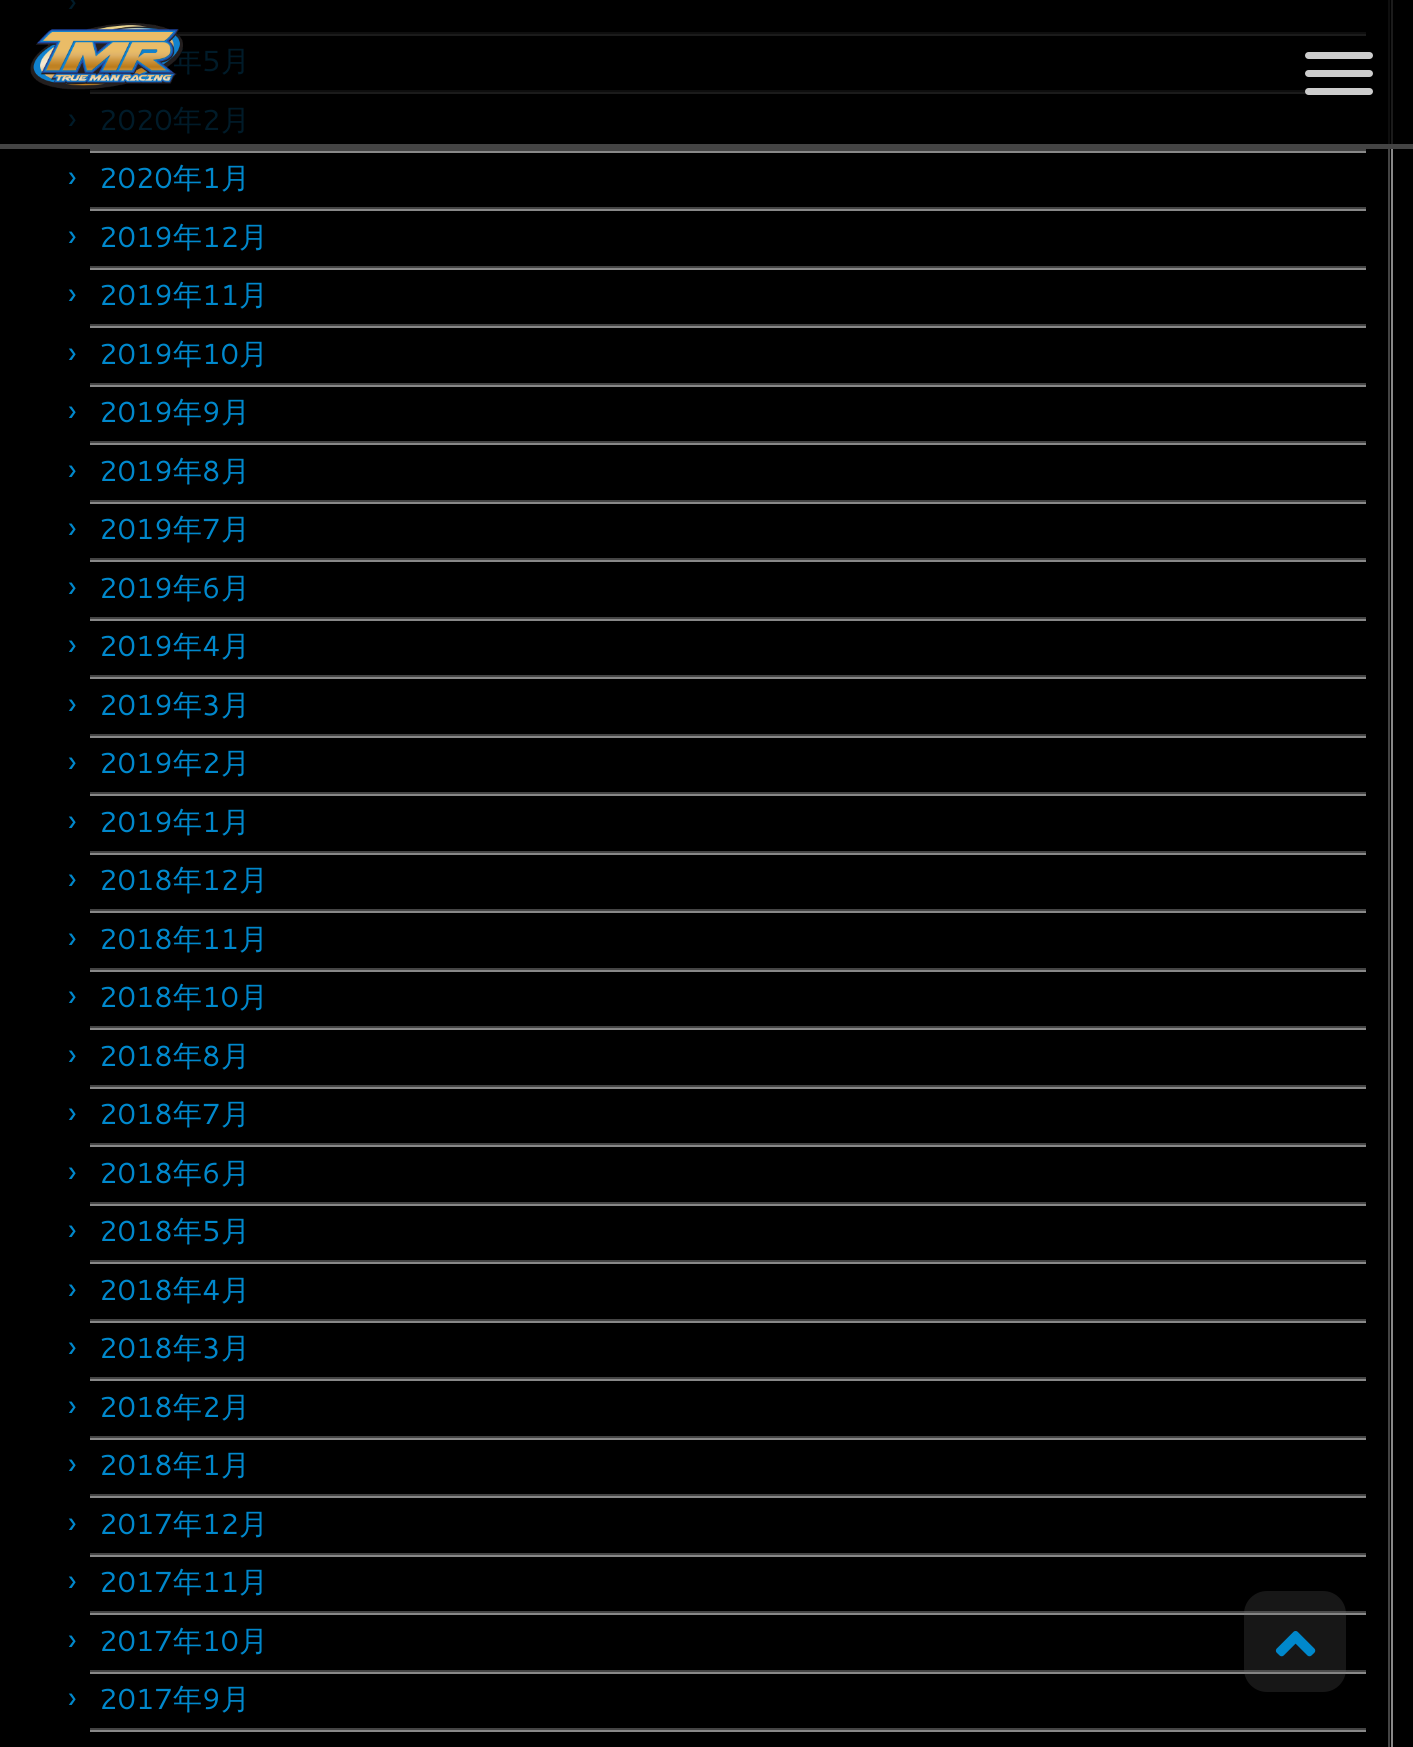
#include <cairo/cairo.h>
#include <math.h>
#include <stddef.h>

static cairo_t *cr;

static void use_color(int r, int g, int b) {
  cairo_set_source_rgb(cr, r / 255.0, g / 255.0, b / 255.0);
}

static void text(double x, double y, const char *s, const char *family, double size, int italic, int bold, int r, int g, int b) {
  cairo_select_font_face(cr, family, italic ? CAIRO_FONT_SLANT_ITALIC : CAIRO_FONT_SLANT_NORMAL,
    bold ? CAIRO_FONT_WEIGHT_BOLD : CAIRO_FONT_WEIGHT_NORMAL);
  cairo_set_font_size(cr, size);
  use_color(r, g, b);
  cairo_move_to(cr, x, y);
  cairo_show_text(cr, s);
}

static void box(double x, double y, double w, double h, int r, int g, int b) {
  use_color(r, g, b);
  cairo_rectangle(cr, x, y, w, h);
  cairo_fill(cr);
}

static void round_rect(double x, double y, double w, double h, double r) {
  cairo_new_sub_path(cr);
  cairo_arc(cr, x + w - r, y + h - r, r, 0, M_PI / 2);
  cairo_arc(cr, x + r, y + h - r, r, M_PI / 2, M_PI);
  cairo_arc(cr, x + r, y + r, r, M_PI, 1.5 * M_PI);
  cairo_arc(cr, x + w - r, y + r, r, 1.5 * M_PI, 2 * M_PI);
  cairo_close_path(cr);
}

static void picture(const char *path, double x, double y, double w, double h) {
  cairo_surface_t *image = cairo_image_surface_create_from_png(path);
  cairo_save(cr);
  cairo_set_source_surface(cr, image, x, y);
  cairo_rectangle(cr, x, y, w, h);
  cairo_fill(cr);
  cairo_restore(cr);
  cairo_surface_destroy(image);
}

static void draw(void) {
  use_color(0, 0, 0);
  cairo_paint(cr);
  box(1388, 149, 2, 1598, 68, 68, 68);
  box(1388, 0, 2, 149, 14, 14, 14);
  box(176, 32, 1190, 2, 14, 14, 14);
  box(177, 34, 1189, 2, 27, 27, 27);
  box(90, 90, 1216, 2, 14, 14, 14);
  box(90, 92, 1216, 2, 27, 27, 27);
  box(90, 149, 1276, 2, 68, 68, 68);
  box(90, 151, 1276, 2, 136, 136, 136);
  box(90, 207, 1276, 2, 68, 68, 68);
  box(90, 209, 1276, 2, 136, 136, 136);
  box(90, 266, 1276, 2, 68, 68, 68);
  box(90, 268, 1276, 2, 136, 136, 136);
  box(90, 324, 1276, 2, 68, 68, 68);
  box(90, 326, 1276, 2, 136, 136, 136);
  box(90, 383, 1276, 2, 68, 68, 68);
  box(90, 385, 1276, 2, 136, 136, 136);
  box(90, 441, 1276, 2, 68, 68, 68);
  box(90, 443, 1276, 2, 136, 136, 136);
  box(90, 500, 1276, 2, 68, 68, 68);
  box(90, 502, 1276, 2, 136, 136, 136);
  box(90, 558, 1276, 2, 68, 68, 68);
  box(90, 560, 1276, 2, 136, 136, 136);
  box(90, 617, 1276, 2, 68, 68, 68);
  box(90, 619, 1276, 2, 136, 136, 136);
  box(90, 675, 1276, 2, 68, 68, 68);
  box(90, 677, 1276, 2, 136, 136, 136);
  box(90, 734, 1276, 2, 68, 68, 68);
  box(90, 736, 1276, 2, 136, 136, 136);
  box(90, 792, 1276, 2, 68, 68, 68);
  box(90, 794, 1276, 2, 136, 136, 136);
  box(90, 851, 1276, 2, 68, 68, 68);
  box(90, 853, 1276, 2, 136, 136, 136);
  box(90, 909, 1276, 2, 68, 68, 68);
  box(90, 911, 1276, 2, 136, 136, 136);
  box(90, 968, 1276, 2, 68, 68, 68);
  box(90, 970, 1276, 2, 136, 136, 136);
  box(90, 1026, 1276, 2, 68, 68, 68);
  box(90, 1028, 1276, 2, 136, 136, 136);
  box(90, 1085, 1276, 2, 68, 68, 68);
  box(90, 1087, 1276, 2, 136, 136, 136);
  box(90, 1143, 1276, 2, 68, 68, 68);
  box(90, 1145, 1276, 2, 136, 136, 136);
  box(90, 1202, 1276, 2, 68, 68, 68);
  box(90, 1204, 1276, 2, 136, 136, 136);
  box(90, 1260, 1276, 2, 68, 68, 68);
  box(90, 1262, 1276, 2, 136, 136, 136);
  box(90, 1319, 1276, 2, 68, 68, 68);
  box(90, 1321, 1276, 2, 136, 136, 136);
  box(90, 1377, 1276, 2, 68, 68, 68);
  box(90, 1379, 1276, 2, 136, 136, 136);
  box(90, 1436, 1276, 2, 68, 68, 68);
  box(90, 1438, 1276, 2, 136, 136, 136);
  box(90, 1494, 1276, 2, 68, 68, 68);
  box(90, 1496, 1276, 2, 136, 136, 136);
  box(90, 1553, 1276, 2, 68, 68, 68);
  box(90, 1555, 1276, 2, 136, 136, 136);
  box(90, 1611, 1276, 2, 68, 68, 68);
  box(90, 1613, 1276, 2, 136, 136, 136);
  box(90, 1670, 1276, 2, 68, 68, 68);
  box(90, 1672, 1276, 2, 136, 136, 136);
  box(90, 1728, 1276, 2, 68, 68, 68);
  box(90, 1730, 1276, 2, 136, 136, 136);
  box(1391, 149, 2, 1598, 136, 136, 136);
  box(1391, 0, 2, 149, 27, 27, 27);
  box(0, 144, 1413, 5, 68, 68, 68);
  use_color(204, 204, 204);
  round_rect(1305, 52, 68, 7, 3.5);
  cairo_fill(cr);
  round_rect(1305, 70, 68, 7, 3.5);
  cairo_fill(cr);
  round_rect(1305, 88, 68, 7, 3.5);
  cairo_fill(cr);
  cairo_set_source_rgba(cr, 0.467, 0.467, 0.467, 0.2);
  round_rect(1244, 1591, 102, 101, 23);
  cairo_fill(cr);
  picture("img_02.png", 1275, 1631, 41, 26);
  text(68, 13, "›", "Cantarell", 32, 0, 0, 0, 27, 41);
  text(173, 71, "年", "WenQuanYi Zen Hei Medium", 29, 0, 0, 0, 27, 41);
  text(202, 71, "5", "Cantarell", 29, 0, 0, 0, 27, 41);
  text(221, 71, "月", "WenQuanYi Zen Hei Medium", 29, 0, 0, 0, 27, 41);
  text(68, 130, "›", "Cantarell", 32, 0, 0, 0, 27, 41);
  text(99, 130, "2020", "Cantarell", 29, 0, 0, 0, 27, 41);
  text(173, 130, "年", "WenQuanYi Zen Hei Medium", 29, 0, 0, 0, 27, 41);
  text(202, 130, "2", "Cantarell", 29, 0, 0, 0, 27, 41);
  text(221, 130, "月", "WenQuanYi Zen Hei Medium", 29, 0, 0, 0, 27, 41);
  text(68, 188, "›", "Cantarell", 32, 0, 0, 0, 136, 204);
  text(99, 188, "2020", "Cantarell", 29, 0, 0, 0, 136, 204);
  text(173, 188, "年", "WenQuanYi Zen Hei Medium", 29, 0, 0, 0, 136, 204);
  text(202, 188, "1", "Cantarell", 29, 0, 0, 0, 136, 204);
  text(221, 188, "月", "WenQuanYi Zen Hei Medium", 29, 0, 0, 0, 136, 204);
  text(68, 247, "›", "Cantarell", 32, 0, 0, 0, 136, 204);
  text(99, 247, "2019", "Cantarell", 29, 0, 0, 0, 136, 204);
  text(173, 247, "年", "WenQuanYi Zen Hei Medium", 29, 0, 0, 0, 136, 204);
  text(202, 247, "12", "Cantarell", 29, 0, 0, 0, 136, 204);
  text(239, 247, "月", "WenQuanYi Zen Hei Medium", 29, 0, 0, 0, 136, 204);
  text(68, 305, "›", "Cantarell", 32, 0, 0, 0, 136, 204);
  text(99, 305, "2019", "Cantarell", 29, 0, 0, 0, 136, 204);
  text(173, 305, "年", "WenQuanYi Zen Hei Medium", 29, 0, 0, 0, 136, 204);
  text(202, 305, "11", "Cantarell", 29, 0, 0, 0, 136, 204);
  text(239, 305, "月", "WenQuanYi Zen Hei Medium", 29, 0, 0, 0, 136, 204);
  text(68, 364, "›", "Cantarell", 32, 0, 0, 0, 136, 204);
  text(99, 364, "2019", "Cantarell", 29, 0, 0, 0, 136, 204);
  text(173, 364, "年", "WenQuanYi Zen Hei Medium", 29, 0, 0, 0, 136, 204);
  text(202, 364, "10", "Cantarell", 29, 0, 0, 0, 136, 204);
  text(239, 364, "月", "WenQuanYi Zen Hei Medium", 29, 0, 0, 0, 136, 204);
  text(68, 422, "›", "Cantarell", 32, 0, 0, 0, 136, 204);
  text(99, 422, "2019", "Cantarell", 29, 0, 0, 0, 136, 204);
  text(173, 422, "年", "WenQuanYi Zen Hei Medium", 29, 0, 0, 0, 136, 204);
  text(202, 422, "9", "Cantarell", 29, 0, 0, 0, 136, 204);
  text(221, 422, "月", "WenQuanYi Zen Hei Medium", 29, 0, 0, 0, 136, 204);
  text(68, 481, "›", "Cantarell", 32, 0, 0, 0, 136, 204);
  text(99, 481, "2019", "Cantarell", 29, 0, 0, 0, 136, 204);
  text(173, 481, "年", "WenQuanYi Zen Hei Medium", 29, 0, 0, 0, 136, 204);
  text(202, 481, "8", "Cantarell", 29, 0, 0, 0, 136, 204);
  text(221, 481, "月", "WenQuanYi Zen Hei Medium", 29, 0, 0, 0, 136, 204);
  text(68, 539, "›", "Cantarell", 32, 0, 0, 0, 136, 204);
  text(99, 539, "2019", "Cantarell", 29, 0, 0, 0, 136, 204);
  text(173, 539, "年", "WenQuanYi Zen Hei Medium", 29, 0, 0, 0, 136, 204);
  text(202, 539, "7", "Cantarell", 29, 0, 0, 0, 136, 204);
  text(221, 539, "月", "WenQuanYi Zen Hei Medium", 29, 0, 0, 0, 136, 204);
  text(68, 598, "›", "Cantarell", 32, 0, 0, 0, 136, 204);
  text(99, 598, "2019", "Cantarell", 29, 0, 0, 0, 136, 204);
  text(173, 598, "年", "WenQuanYi Zen Hei Medium", 29, 0, 0, 0, 136, 204);
  text(202, 598, "6", "Cantarell", 29, 0, 0, 0, 136, 204);
  text(221, 598, "月", "WenQuanYi Zen Hei Medium", 29, 0, 0, 0, 136, 204);
  text(68, 656, "›", "Cantarell", 32, 0, 0, 0, 136, 204);
  text(99, 656, "2019", "Cantarell", 29, 0, 0, 0, 136, 204);
  text(173, 656, "年", "WenQuanYi Zen Hei Medium", 29, 0, 0, 0, 136, 204);
  text(202, 656, "4", "Cantarell", 29, 0, 0, 0, 136, 204);
  text(221, 656, "月", "WenQuanYi Zen Hei Medium", 29, 0, 0, 0, 136, 204);
  text(68, 715, "›", "Cantarell", 32, 0, 0, 0, 136, 204);
  text(99, 715, "2019", "Cantarell", 29, 0, 0, 0, 136, 204);
  text(173, 715, "年", "WenQuanYi Zen Hei Medium", 29, 0, 0, 0, 136, 204);
  text(202, 715, "3", "Cantarell", 29, 0, 0, 0, 136, 204);
  text(221, 715, "月", "WenQuanYi Zen Hei Medium", 29, 0, 0, 0, 136, 204);
  text(68, 773, "›", "Cantarell", 32, 0, 0, 0, 136, 204);
  text(99, 773, "2019", "Cantarell", 29, 0, 0, 0, 136, 204);
  text(173, 773, "年", "WenQuanYi Zen Hei Medium", 29, 0, 0, 0, 136, 204);
  text(202, 773, "2", "Cantarell", 29, 0, 0, 0, 136, 204);
  text(221, 773, "月", "WenQuanYi Zen Hei Medium", 29, 0, 0, 0, 136, 204);
  text(68, 832, "›", "Cantarell", 32, 0, 0, 0, 136, 204);
  text(99, 832, "2019", "Cantarell", 29, 0, 0, 0, 136, 204);
  text(173, 832, "年", "WenQuanYi Zen Hei Medium", 29, 0, 0, 0, 136, 204);
  text(202, 832, "1", "Cantarell", 29, 0, 0, 0, 136, 204);
  text(221, 832, "月", "WenQuanYi Zen Hei Medium", 29, 0, 0, 0, 136, 204);
  text(68, 890, "›", "Cantarell", 32, 0, 0, 0, 136, 204);
  text(99, 890, "2018", "Cantarell", 29, 0, 0, 0, 136, 204);
  text(173, 890, "年", "WenQuanYi Zen Hei Medium", 29, 0, 0, 0, 136, 204);
  text(202, 890, "12", "Cantarell", 29, 0, 0, 0, 136, 204);
  text(239, 890, "月", "WenQuanYi Zen Hei Medium", 29, 0, 0, 0, 136, 204);
  text(68, 949, "›", "Cantarell", 32, 0, 0, 0, 136, 204);
  text(99, 949, "2018", "Cantarell", 29, 0, 0, 0, 136, 204);
  text(173, 949, "年", "WenQuanYi Zen Hei Medium", 29, 0, 0, 0, 136, 204);
  text(202, 949, "11", "Cantarell", 29, 0, 0, 0, 136, 204);
  text(239, 949, "月", "WenQuanYi Zen Hei Medium", 29, 0, 0, 0, 136, 204);
  text(68, 1007, "›", "Cantarell", 32, 0, 0, 0, 136, 204);
  text(99, 1007, "2018", "Cantarell", 29, 0, 0, 0, 136, 204);
  text(173, 1007, "年", "WenQuanYi Zen Hei Medium", 29, 0, 0, 0, 136, 204);
  text(202, 1007, "10", "Cantarell", 29, 0, 0, 0, 136, 204);
  text(239, 1007, "月", "WenQuanYi Zen Hei Medium", 29, 0, 0, 0, 136, 204);
  text(68, 1066, "›", "Cantarell", 32, 0, 0, 0, 136, 204);
  text(99, 1066, "2018", "Cantarell", 29, 0, 0, 0, 136, 204);
  text(173, 1066, "年", "WenQuanYi Zen Hei Medium", 29, 0, 0, 0, 136, 204);
  text(202, 1066, "8", "Cantarell", 29, 0, 0, 0, 136, 204);
  text(221, 1066, "月", "WenQuanYi Zen Hei Medium", 29, 0, 0, 0, 136, 204);
  text(68, 1124, "›", "Cantarell", 32, 0, 0, 0, 136, 204);
  text(99, 1124, "2018", "Cantarell", 29, 0, 0, 0, 136, 204);
  text(173, 1124, "年", "WenQuanYi Zen Hei Medium", 29, 0, 0, 0, 136, 204);
  text(202, 1124, "7", "Cantarell", 29, 0, 0, 0, 136, 204);
  text(221, 1124, "月", "WenQuanYi Zen Hei Medium", 29, 0, 0, 0, 136, 204);
  text(68, 1183, "›", "Cantarell", 32, 0, 0, 0, 136, 204);
  text(99, 1183, "2018", "Cantarell", 29, 0, 0, 0, 136, 204);
  text(173, 1183, "年", "WenQuanYi Zen Hei Medium", 29, 0, 0, 0, 136, 204);
  text(202, 1183, "6", "Cantarell", 29, 0, 0, 0, 136, 204);
  text(221, 1183, "月", "WenQuanYi Zen Hei Medium", 29, 0, 0, 0, 136, 204);
  text(68, 1241, "›", "Cantarell", 32, 0, 0, 0, 136, 204);
  text(99, 1241, "2018", "Cantarell", 29, 0, 0, 0, 136, 204);
  text(173, 1241, "年", "WenQuanYi Zen Hei Medium", 29, 0, 0, 0, 136, 204);
  text(202, 1241, "5", "Cantarell", 29, 0, 0, 0, 136, 204);
  text(221, 1241, "月", "WenQuanYi Zen Hei Medium", 29, 0, 0, 0, 136, 204);
  text(68, 1300, "›", "Cantarell", 32, 0, 0, 0, 136, 204);
  text(99, 1300, "2018", "Cantarell", 29, 0, 0, 0, 136, 204);
  text(173, 1300, "年", "WenQuanYi Zen Hei Medium", 29, 0, 0, 0, 136, 204);
  text(202, 1300, "4", "Cantarell", 29, 0, 0, 0, 136, 204);
  text(221, 1300, "月", "WenQuanYi Zen Hei Medium", 29, 0, 0, 0, 136, 204);
  text(68, 1358, "›", "Cantarell", 32, 0, 0, 0, 136, 204);
  text(99, 1358, "2018", "Cantarell", 29, 0, 0, 0, 136, 204);
  text(173, 1358, "年", "WenQuanYi Zen Hei Medium", 29, 0, 0, 0, 136, 204);
  text(202, 1358, "3", "Cantarell", 29, 0, 0, 0, 136, 204);
  text(221, 1358, "月", "WenQuanYi Zen Hei Medium", 29, 0, 0, 0, 136, 204);
  text(68, 1417, "›", "Cantarell", 32, 0, 0, 0, 136, 204);
  text(99, 1417, "2018", "Cantarell", 29, 0, 0, 0, 136, 204);
  text(173, 1417, "年", "WenQuanYi Zen Hei Medium", 29, 0, 0, 0, 136, 204);
  text(202, 1417, "2", "Cantarell", 29, 0, 0, 0, 136, 204);
  text(221, 1417, "月", "WenQuanYi Zen Hei Medium", 29, 0, 0, 0, 136, 204);
  text(68, 1475, "›", "Cantarell", 32, 0, 0, 0, 136, 204);
  text(99, 1475, "2018", "Cantarell", 29, 0, 0, 0, 136, 204);
  text(173, 1475, "年", "WenQuanYi Zen Hei Medium", 29, 0, 0, 0, 136, 204);
  text(202, 1475, "1", "Cantarell", 29, 0, 0, 0, 136, 204);
  text(221, 1475, "月", "WenQuanYi Zen Hei Medium", 29, 0, 0, 0, 136, 204);
  text(68, 1534, "›", "Cantarell", 32, 0, 0, 0, 136, 204);
  text(99, 1534, "2017", "Cantarell", 29, 0, 0, 0, 136, 204);
  text(173, 1534, "年", "WenQuanYi Zen Hei Medium", 29, 0, 0, 0, 136, 204);
  text(202, 1534, "12", "Cantarell", 29, 0, 0, 0, 136, 204);
  text(239, 1534, "月", "WenQuanYi Zen Hei Medium", 29, 0, 0, 0, 136, 204);
  text(68, 1592, "›", "Cantarell", 32, 0, 0, 0, 136, 204);
  text(99, 1592, "2017", "Cantarell", 29, 0, 0, 0, 136, 204);
  text(173, 1592, "年", "WenQuanYi Zen Hei Medium", 29, 0, 0, 0, 136, 204);
  text(202, 1592, "11", "Cantarell", 29, 0, 0, 0, 136, 204);
  text(239, 1592, "月", "WenQuanYi Zen Hei Medium", 29, 0, 0, 0, 136, 204);
  text(68, 1651, "›", "Cantarell", 32, 0, 0, 0, 136, 204);
  text(99, 1651, "2017", "Cantarell", 29, 0, 0, 0, 136, 204);
  text(173, 1651, "年", "WenQuanYi Zen Hei Medium", 29, 0, 0, 0, 136, 204);
  text(202, 1651, "10", "Cantarell", 29, 0, 0, 0, 136, 204);
  text(239, 1651, "月", "WenQuanYi Zen Hei Medium", 29, 0, 0, 0, 136, 204);
  text(68, 1709, "›", "Cantarell", 32, 0, 0, 0, 136, 204);
  text(99, 1709, "2017", "Cantarell", 29, 0, 0, 0, 136, 204);
  text(173, 1709, "年", "WenQuanYi Zen Hei Medium", 29, 0, 0, 0, 136, 204);
  text(202, 1709, "9", "Cantarell", 29, 0, 0, 0, 136, 204);
  text(221, 1709, "月", "WenQuanYi Zen Hei Medium", 29, 0, 0, 0, 136, 204);
  picture("img_01.png", 30, 23, 153, 67);
}

int main(void) {
  cairo_surface_t *surface = cairo_image_surface_create(CAIRO_FORMAT_RGB24, 1413, 1747);
  cr = cairo_create(surface);
  cairo_font_options_t *options = cairo_font_options_create();
  cairo_font_options_set_hint_metrics(options, CAIRO_HINT_METRICS_OFF);
  cairo_font_options_set_hint_style(options, CAIRO_HINT_STYLE_NONE);
  cairo_set_font_options(cr, options);
  cairo_set_miter_limit(cr, 4);
  draw();
  cairo_surface_write_to_png(surface, "out.png");
  cairo_font_options_destroy(options);
  cairo_destroy(cr);
  cairo_surface_destroy(surface);
  return 0;
}
